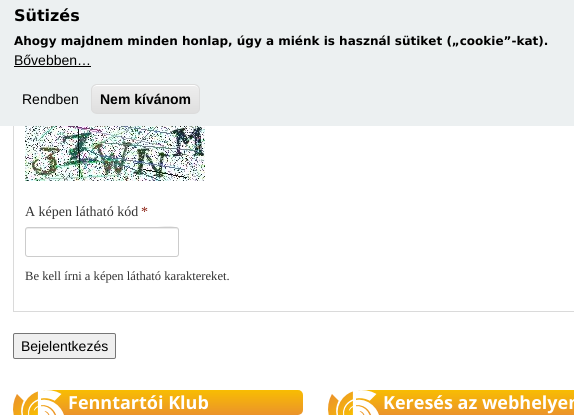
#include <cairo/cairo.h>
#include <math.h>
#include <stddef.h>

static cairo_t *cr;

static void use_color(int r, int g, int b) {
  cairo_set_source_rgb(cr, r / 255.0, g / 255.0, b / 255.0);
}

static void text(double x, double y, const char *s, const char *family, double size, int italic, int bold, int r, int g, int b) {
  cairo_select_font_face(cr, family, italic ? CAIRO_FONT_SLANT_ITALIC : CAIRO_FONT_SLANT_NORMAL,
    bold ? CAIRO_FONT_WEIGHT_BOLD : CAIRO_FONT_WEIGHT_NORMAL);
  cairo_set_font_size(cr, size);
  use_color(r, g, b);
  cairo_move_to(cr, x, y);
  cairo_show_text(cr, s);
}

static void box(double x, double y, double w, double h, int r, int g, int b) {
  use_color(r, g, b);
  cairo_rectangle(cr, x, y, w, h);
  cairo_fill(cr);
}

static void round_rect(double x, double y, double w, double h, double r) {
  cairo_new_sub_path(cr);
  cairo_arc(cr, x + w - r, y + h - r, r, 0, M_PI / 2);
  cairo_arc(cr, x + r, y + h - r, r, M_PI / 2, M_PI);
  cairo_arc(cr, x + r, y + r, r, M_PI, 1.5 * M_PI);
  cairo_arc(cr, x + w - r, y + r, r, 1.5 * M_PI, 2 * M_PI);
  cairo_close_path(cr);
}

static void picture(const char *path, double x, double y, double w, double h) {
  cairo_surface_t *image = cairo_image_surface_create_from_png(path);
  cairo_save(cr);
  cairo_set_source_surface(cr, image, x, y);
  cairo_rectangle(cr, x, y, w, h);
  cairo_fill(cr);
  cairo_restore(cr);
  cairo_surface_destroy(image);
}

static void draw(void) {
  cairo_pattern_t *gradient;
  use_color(255, 255, 255);
  cairo_paint(cr);
  cairo_rectangle(cr, 13.5, 44.5, 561, 267);
  use_color(218, 218, 218);
  cairo_set_line_width(cr, 1);
  cairo_stroke(cr);
  box(0, 0, 574, 126, 236, 240, 241);
  box(14, 66, 77, 1, 0, 0, 0);
  cairo_save(cr);
  round_rect(91, 84, 109, 30, 6);
  cairo_clip(cr);
  gradient = cairo_pattern_create_linear(146, 85, 146, 113);
  cairo_pattern_add_color_stop_rgba(gradient, 0.05, 0.929, 0.929, 0.929, 1);
  cairo_pattern_add_color_stop_rgba(gradient, 1, 0.875, 0.875, 0.875, 1);
  cairo_set_source(cr, gradient);
  cairo_pattern_destroy(gradient);
  cairo_rectangle(cr, 91, 85, 109, 28);
  cairo_fill(cr);
  cairo_restore(cr);
  use_color(255, 255, 255);
  cairo_new_path(cr);
  cairo_move_to(cr, 97, 86);
  cairo_line_to(cr, 194, 86);
  cairo_curve_to(cr, 197, 86, 199, 88, 199, 91);
  cairo_curve_to(cr, 199, 81, 183, 85, 178, 85);
  cairo_line_to(cr, 113, 85);
  cairo_curve_to(cr, 108, 85, 92, 81, 92, 91);
  cairo_curve_to(cr, 92, 88, 94, 86, 97, 86);
  cairo_close_path(cr);
  cairo_fill(cr);
  round_rect(91.5, 84.5, 108, 29, 5.5);
  use_color(220, 220, 220);
  cairo_stroke(cr);
  picture("img_01.png", 25, 126, 180, 55);
  use_color(236, 236, 236);
  cairo_new_path(cr);
  cairo_move_to(cr, 28, 229);
  cairo_line_to(cr, 176, 229);
  cairo_curve_to(cr, 177, 229, 178, 230, 178, 231);
  cairo_curve_to(cr, 178, 222, 154, 228, 151, 228);
  cairo_line_to(cr, 27, 228);
  cairo_curve_to(cr, 26, 229, 26, 230, 26, 231);
  cairo_curve_to(cr, 26, 230, 27, 229, 28, 229);
  cairo_close_path(cr);
  cairo_fill(cr);
  round_rect(25.5, 227.5, 153, 29, 2.5);
  use_color(204, 204, 204);
  cairo_stroke(cr);
  use_color(239, 239, 239);
  round_rect(13.5, 333.5, 102, 25, 1.5);
  cairo_fill_preserve(cr);
  use_color(118, 118, 118);
  cairo_stroke(cr);
  picture("img_03.png", 41, 390, 262, 25);
  picture("img_02.png", 13, 390, 51, 25);
  picture("img_04.png", 356, 390, 218, 25);
  picture("img_02.png", 328, 390, 51, 25);
  text(14, 21, "Sütizés", "DejaVu Sans", 16, 0, 1, 0, 0, 0);
  text(14, 45, "Ahogy majdnem minden honlap, úgy a miénk is használ sütiket („cookie”-kat).", "DejaVu Sans", 12, 0, 1, 0, 0, 0);
  text(14, 65, "Bővebben…", "Liberation Sans", 14, 0, 0, 0, 0, 0);
  text(22, 104, "Rendben", "Liberation Sans", 14, 0, 0, 0, 0, 0);
  text(100, 104, "Nem kívánom", "Liberation Sans", 14, 0, 1, 0, 0, 0);
  text(25, 216, "A képen látható kód", "Liberation Serif", 14, 0, 0, 51, 51, 51);
  text(141, 216, "*", "Liberation Serif", 14, 0, 0, 138, 31, 17);
  text(25, 280, "Be kell írni a képen látható karaktereket.", "Liberation Serif", 12.6, 0, 0, 51, 51, 51);
  text(21, 351, "Bejelentkezés", "Liberation Sans", 14, 0, 0, 0, 0, 0);
  text(68, 409, "Fenntartói Klub", "Open Sans", 18, 0, 1, 255, 255, 255);
  text(383, 409, "Keresés az webhelyen", "Open Sans", 18, 0, 1, 255, 255, 255);
}

int main(void) {
  cairo_surface_t *surface = cairo_image_surface_create(CAIRO_FORMAT_RGB24, 574, 420);
  cr = cairo_create(surface);
  cairo_font_options_t *options = cairo_font_options_create();
  cairo_font_options_set_hint_metrics(options, CAIRO_HINT_METRICS_OFF);
  cairo_font_options_set_hint_style(options, CAIRO_HINT_STYLE_NONE);
  cairo_set_font_options(cr, options);
  cairo_set_miter_limit(cr, 4);
  draw();
  cairo_surface_write_to_png(surface, "out.png");
  cairo_font_options_destroy(options);
  cairo_destroy(cr);
  cairo_surface_destroy(surface);
  return 0;
}
